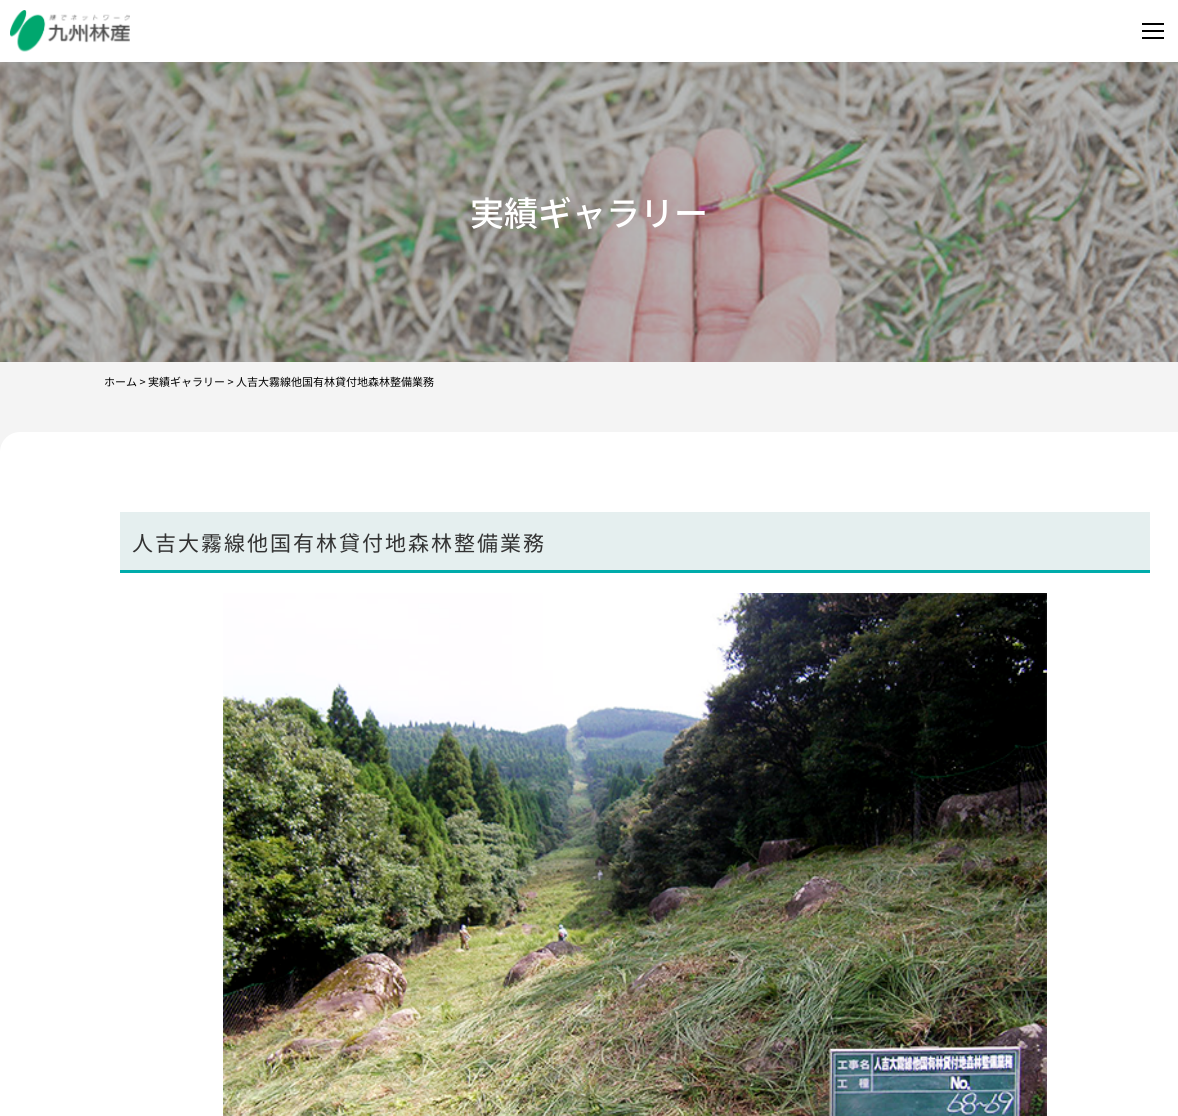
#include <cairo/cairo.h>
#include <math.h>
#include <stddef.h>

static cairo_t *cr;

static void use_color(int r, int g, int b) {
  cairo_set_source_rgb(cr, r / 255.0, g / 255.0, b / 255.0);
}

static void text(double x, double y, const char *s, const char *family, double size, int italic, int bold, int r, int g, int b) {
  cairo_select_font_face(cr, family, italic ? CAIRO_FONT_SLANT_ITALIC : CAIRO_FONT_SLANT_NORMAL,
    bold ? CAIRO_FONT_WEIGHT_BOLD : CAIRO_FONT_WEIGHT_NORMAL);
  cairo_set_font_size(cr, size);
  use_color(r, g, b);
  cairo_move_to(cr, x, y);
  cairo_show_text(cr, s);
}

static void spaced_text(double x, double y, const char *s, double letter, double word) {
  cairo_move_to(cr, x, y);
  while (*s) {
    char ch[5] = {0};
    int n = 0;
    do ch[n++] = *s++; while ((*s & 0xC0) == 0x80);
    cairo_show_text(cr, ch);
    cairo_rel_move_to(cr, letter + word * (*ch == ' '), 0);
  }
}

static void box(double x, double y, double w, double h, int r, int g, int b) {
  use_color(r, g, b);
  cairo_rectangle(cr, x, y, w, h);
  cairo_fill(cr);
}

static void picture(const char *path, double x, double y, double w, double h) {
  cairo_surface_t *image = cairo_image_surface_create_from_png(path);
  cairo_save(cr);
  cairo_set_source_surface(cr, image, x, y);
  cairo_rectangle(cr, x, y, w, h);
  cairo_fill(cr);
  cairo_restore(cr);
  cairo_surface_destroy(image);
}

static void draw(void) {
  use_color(255, 255, 255);
  cairo_paint(cr);
  picture("img_01.png", 10, 10, 120, 42);
  box(1142, 23, 22, 2, 0, 0, 0);
  box(1142, 30, 22, 2, 0, 0, 0);
  box(1142, 37, 22, 2, 0, 0, 0);
  picture("img_02.png", 0, 62, 1178, 300);
  box(0, 362, 1178, 90, 244, 244, 244);
  use_color(255, 255, 255);
  cairo_new_path(cr);
  cairo_move_to(cr, 20, 432);
  cairo_line_to(cr, 1178, 432);
  cairo_line_to(cr, 1178, 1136);
  cairo_line_to(cr, 20, 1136);
  cairo_curve_to(cr, 9, 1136, 0, 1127, 0, 1116);
  cairo_line_to(cr, 0, 452);
  cairo_curve_to(cr, 0, 441, 9, 432, 20, 432);
  cairo_close_path(cr);
  cairo_fill(cr);
  box(120, 512, 1030, 58, 229, 239, 239);
  box(120, 570, 1030, 3, 0, 172, 171);
  picture("img_03.png", 223, 593, 824, 523);
  text(470, 226, "実績ギャラリー", "Noto Sans JP Medium", 34, 0, 0, 255, 255, 255);
  text(104, 386, "ホーム > 実績ギャラリー > 人吉大霧線他国有林貸付地森林整備業務", "Noto Sans JP", 11, 0, 0, 0, 0, 0);
  cairo_set_font_size(cr, 21);
  use_color(51, 51, 51);
  spaced_text(132, 551, "人吉大霧線他国有林貸付地森林整備業務", 2, 0);
}

int main(void) {
  cairo_surface_t *surface = cairo_image_surface_create(CAIRO_FORMAT_RGB24, 1178, 1116);
  cr = cairo_create(surface);
  cairo_font_options_t *options = cairo_font_options_create();
  cairo_font_options_set_hint_metrics(options, CAIRO_HINT_METRICS_OFF);
  cairo_font_options_set_hint_style(options, CAIRO_HINT_STYLE_NONE);
  cairo_set_font_options(cr, options);
  cairo_set_miter_limit(cr, 4);
  draw();
  cairo_surface_write_to_png(surface, "out.png");
  cairo_font_options_destroy(options);
  cairo_destroy(cr);
  cairo_surface_destroy(surface);
  return 0;
}
